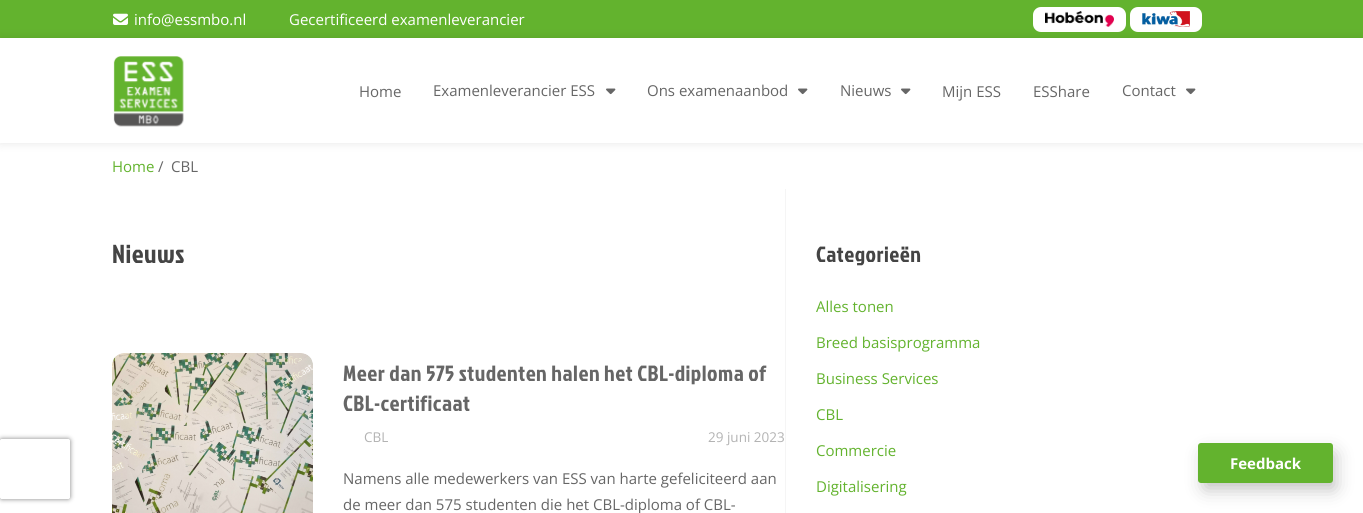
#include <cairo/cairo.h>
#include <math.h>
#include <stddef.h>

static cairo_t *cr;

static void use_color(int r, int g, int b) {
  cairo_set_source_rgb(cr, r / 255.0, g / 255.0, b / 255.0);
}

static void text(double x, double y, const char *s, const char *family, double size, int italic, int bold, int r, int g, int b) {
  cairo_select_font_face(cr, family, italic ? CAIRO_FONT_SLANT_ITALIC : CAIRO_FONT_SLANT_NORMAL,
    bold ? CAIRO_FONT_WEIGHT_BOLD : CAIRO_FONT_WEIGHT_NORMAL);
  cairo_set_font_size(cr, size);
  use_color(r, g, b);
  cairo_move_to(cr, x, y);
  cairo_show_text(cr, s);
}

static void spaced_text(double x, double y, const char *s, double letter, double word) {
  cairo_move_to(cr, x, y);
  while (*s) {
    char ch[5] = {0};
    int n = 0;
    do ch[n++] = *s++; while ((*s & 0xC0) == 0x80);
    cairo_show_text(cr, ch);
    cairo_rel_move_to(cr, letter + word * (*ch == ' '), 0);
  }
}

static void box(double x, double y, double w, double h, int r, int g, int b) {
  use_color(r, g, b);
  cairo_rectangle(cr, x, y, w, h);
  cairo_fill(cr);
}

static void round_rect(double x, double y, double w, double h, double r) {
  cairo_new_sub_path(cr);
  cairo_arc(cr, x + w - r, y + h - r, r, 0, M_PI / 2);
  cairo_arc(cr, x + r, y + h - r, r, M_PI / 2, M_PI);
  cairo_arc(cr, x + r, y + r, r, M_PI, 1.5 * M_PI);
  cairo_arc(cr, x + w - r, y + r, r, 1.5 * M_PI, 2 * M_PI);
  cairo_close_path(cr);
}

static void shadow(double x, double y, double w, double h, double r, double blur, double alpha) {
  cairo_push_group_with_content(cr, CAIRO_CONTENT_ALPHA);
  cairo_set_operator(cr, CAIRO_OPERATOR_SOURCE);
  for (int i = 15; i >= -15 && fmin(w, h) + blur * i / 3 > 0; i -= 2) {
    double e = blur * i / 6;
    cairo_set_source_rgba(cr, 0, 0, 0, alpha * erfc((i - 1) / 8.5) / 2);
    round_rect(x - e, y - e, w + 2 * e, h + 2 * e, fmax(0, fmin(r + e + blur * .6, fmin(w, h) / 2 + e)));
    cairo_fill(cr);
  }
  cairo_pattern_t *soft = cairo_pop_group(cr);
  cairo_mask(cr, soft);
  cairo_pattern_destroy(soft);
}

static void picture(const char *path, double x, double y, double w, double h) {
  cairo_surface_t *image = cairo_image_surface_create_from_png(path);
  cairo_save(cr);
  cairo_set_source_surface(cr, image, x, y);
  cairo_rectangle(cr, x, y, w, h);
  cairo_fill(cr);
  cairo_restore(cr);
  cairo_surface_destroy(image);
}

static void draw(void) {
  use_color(255, 255, 255);
  cairo_paint(cr);
  box(0, 0, 1363, 38, 99, 179, 46);
  picture("img_01.png", 113, 13, 15, 12);
  use_color(255, 255, 255);
  round_rect(1033, 7, 93, 25, 8);
  cairo_fill(cr);
  picture("img_02.png", 1045, 11, 69, 16);
  round_rect(1130, 7, 72, 25, 8);
  cairo_fill(cr);
  picture("img_03.png", 1142, 11, 48, 16);
  cairo_save(cr);
  cairo_set_fill_rule(cr, CAIRO_FILL_RULE_EVEN_ODD);
  cairo_new_path(cr);
  cairo_move_to(cr, 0, 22);
  cairo_line_to(cr, 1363, 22);
  cairo_line_to(cr, 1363, 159);
  cairo_line_to(cr, 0, 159);
  cairo_close_path(cr);
  cairo_move_to(cr, 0, 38);
  cairo_line_to(cr, 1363, 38);
  cairo_line_to(cr, 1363, 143);
  cairo_line_to(cr, 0, 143);
  cairo_close_path(cr);
  cairo_clip(cr);
  use_color(0, 0, 0);
  shadow(0, 38, 1363, 105, 0, 5, 0.1);
  cairo_restore(cr);
  picture("img_04.png", 113, 56, 71, 71);
  picture("img_05.png", 606, 88, 10, 7);
  picture("img_05.png", 798, 88, 10, 7);
  picture("img_05.png", 901, 88, 10, 7);
  picture("img_05.png", 1186, 88, 10, 7);
  cairo_save(cr);
  cairo_set_fill_rule(cr, CAIRO_FILL_RULE_EVEN_ODD);
  cairo_new_path(cr);
  cairo_move_to(cr, 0, 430);
  cairo_line_to(cr, 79, 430);
  cairo_line_to(cr, 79, 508);
  cairo_line_to(cr, 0, 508);
  cairo_close_path(cr);
  cairo_move_to(cr, 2, 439);
  cairo_line_to(cr, 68, 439);
  cairo_curve_to(cr, 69, 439, 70, 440, 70, 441);
  cairo_line_to(cr, 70, 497);
  cairo_curve_to(cr, 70, 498, 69, 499, 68, 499);
  cairo_line_to(cr, 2, 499);
  cairo_curve_to(cr, 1, 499, 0, 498, 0, 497);
  cairo_line_to(cr, 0, 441);
  cairo_curve_to(cr, 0, 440, 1, 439, 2, 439);
  cairo_close_path(cr);
  cairo_clip(cr);
  use_color(128, 128, 128);
  shadow(0, 439, 70, 60, 2, 2.5, 1);
  cairo_restore(cr);
  use_color(245, 245, 245);
  round_rect(112, 353, 201, 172, 12);
  cairo_fill(cr);
  picture("img_06.png", 112, 353, 201, 160);
  box(785, 189, 1, 324, 245, 245, 245);
  use_color(0, 0, 0);
  shadow(1205, 454, 129, 34, 0, 9.5, 0.27);
  use_color(99, 179, 46);
  round_rect(1198, 443, 135, 40, 3);
  cairo_fill(cr);
  text(134, 25, "info@essmbo.nl", "Open Sans", 15, 0, 0, 255, 255, 255);
  text(289, 25, "Gecertificeerd examenleverancier", "Open Sans", 15, 0, 0, 255, 255, 255);
  text(359, 97, "Home", "Open Sans", 15, 0, 0, 102, 102, 102);
  text(433, 96, "Examenleverancier ESS", "Open Sans", 15, 0, 0, 102, 102, 102);
  text(647, 96, "Ons examenaanbod", "Open Sans", 15, 0, 0, 102, 102, 102);
  text(840, 96, "Nieuws", "Open Sans", 15, 0, 0, 102, 102, 102);
  text(942, 97, "Mijn ESS", "Open Sans", 15, 0, 0, 102, 102, 102);
  text(1033, 97, "ESShare", "Open Sans", 15, 0, 0, 102, 102, 102);
  text(1122, 96, "Contact", "Open Sans", 15, 0, 0, 102, 102, 102);
  text(112, 172, "Home", "Open Sans", 15, 0, 0, 99, 179, 46);
  text(158, 172, "/", "Open Sans", 15, 0, 0, 102, 102, 102);
  text(171, 172, "CBL", "Open Sans", 15, 0, 0, 102, 102, 102);
  cairo_select_font_face(cr, "Jockey One", CAIRO_FONT_SLANT_NORMAL, CAIRO_FONT_WEIGHT_NORMAL);
  cairo_set_font_size(cr, 26);
  use_color(68, 68, 68);
  spaced_text(112, 263, "Nieuws", 0.5, 0);
  cairo_set_font_size(cr, 22);
  use_color(102, 102, 102);
  spaced_text(343, 381, "Meer dan 575 studenten halen het CBL-diploma of", 0.5, 0);
  spaced_text(343, 411, "CBL-certificaat", 0.5, 0);
  text(364, 442, "CBL", "Open Sans", 13.5, 0, 0, 179, 179, 179);
  text(708, 442, "29 juni 2023", "Open Sans", 13.5, 0, 0, 179, 179, 179);
  text(343, 484, "Namens alle medewerkers van ESS van harte gefeliciteerd aan", "Open Sans", 15, 0, 0, 102, 102, 102);
  text(343, 510, "de meer dan 575 studenten die het CBL-diploma of CBL-", "Open Sans", 15, 0, 0, 102, 102, 102);
  cairo_select_font_face(cr, "Jockey One", CAIRO_FONT_SLANT_NORMAL, CAIRO_FONT_WEIGHT_NORMAL);
  cairo_set_font_size(cr, 22);
  use_color(68, 68, 68);
  spaced_text(816, 262, "Categorieën", 0.5, 0);
  text(816, 312, "Alles tonen", "Open Sans", 15, 0, 0, 99, 179, 46);
  text(816, 348, "Breed basisprogramma", "Open Sans", 15, 0, 0, 99, 179, 46);
  text(816, 384, "Business Services", "Open Sans", 15, 0, 0, 99, 179, 46);
  text(816, 420, "CBL", "Open Sans", 15, 0, 0, 99, 179, 46);
  text(816, 456, "Commercie", "Open Sans", 15, 0, 0, 99, 179, 46);
  text(816, 492, "Digitalisering", "Open Sans", 15, 0, 0, 99, 179, 46);
  text(1230, 469, "Feedback", "Open Sans", 15, 0, 1, 255, 255, 255);
}

int main(void) {
  cairo_surface_t *surface = cairo_image_surface_create(CAIRO_FORMAT_RGB24, 1363, 513);
  cr = cairo_create(surface);
  cairo_font_options_t *options = cairo_font_options_create();
  cairo_font_options_set_hint_metrics(options, CAIRO_HINT_METRICS_OFF);
  cairo_font_options_set_hint_style(options, CAIRO_HINT_STYLE_NONE);
  cairo_set_font_options(cr, options);
  cairo_set_miter_limit(cr, 4);
  draw();
  cairo_surface_write_to_png(surface, "out.png");
  cairo_font_options_destroy(options);
  cairo_destroy(cr);
  cairo_surface_destroy(surface);
  return 0;
}
